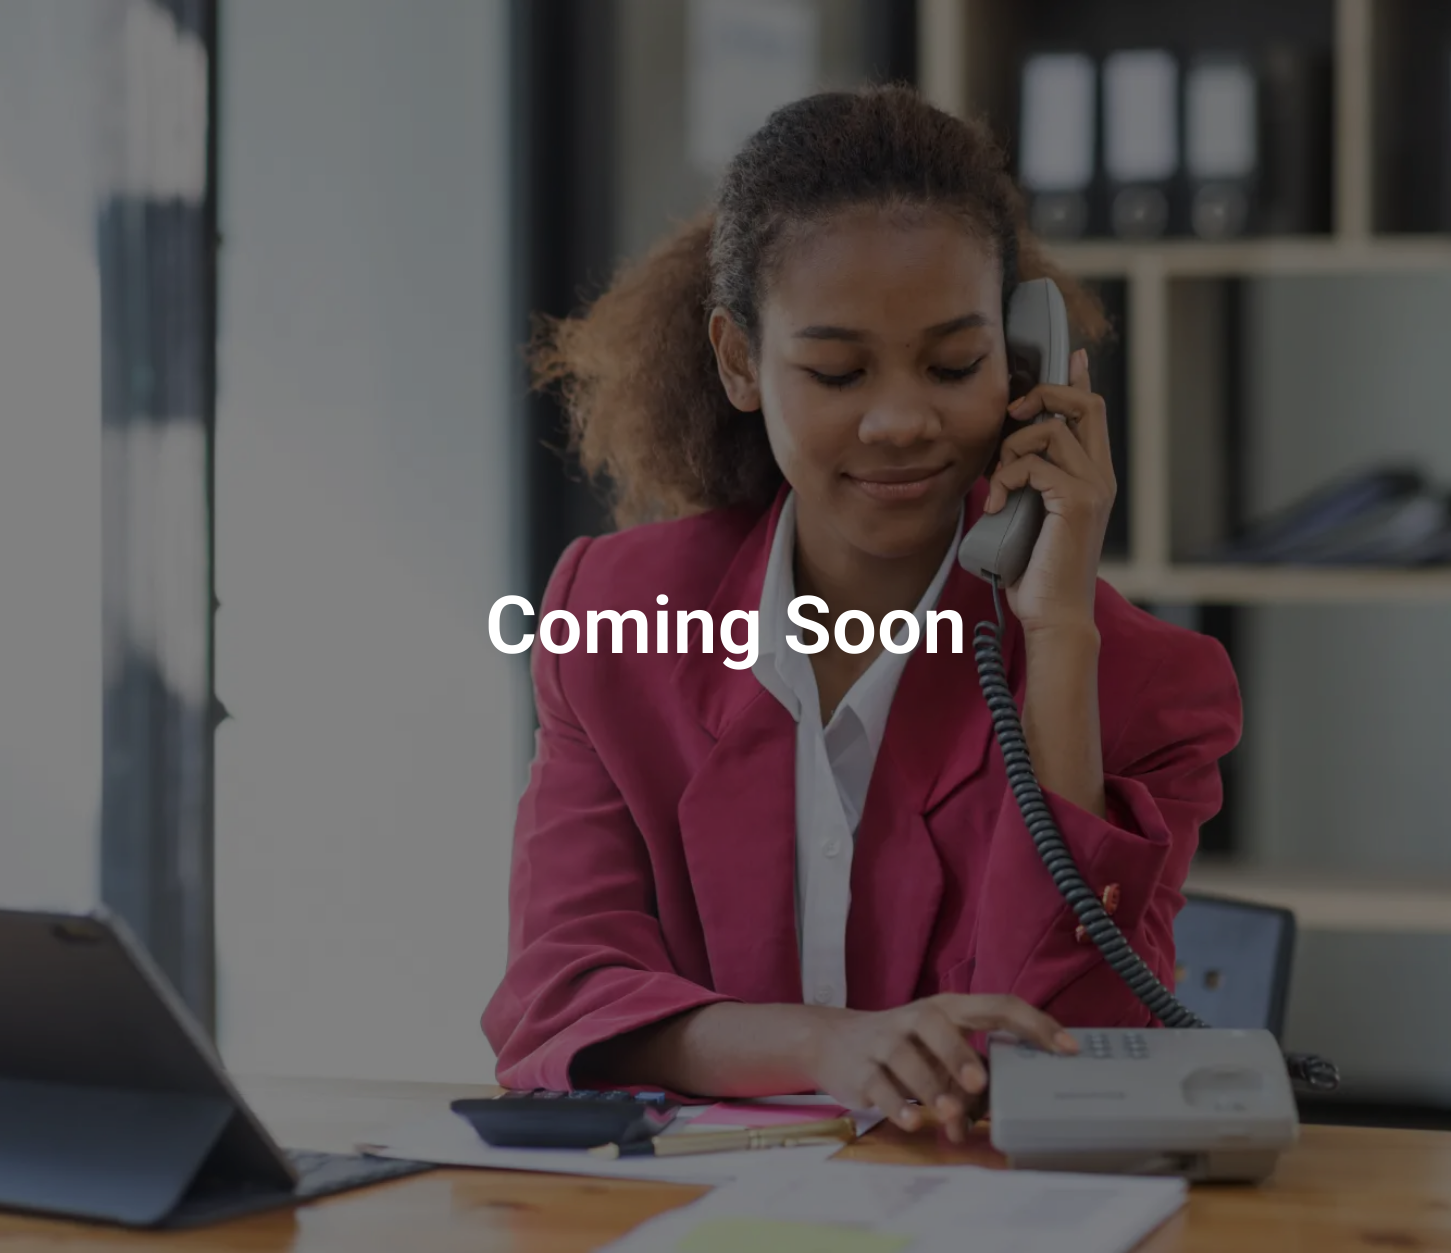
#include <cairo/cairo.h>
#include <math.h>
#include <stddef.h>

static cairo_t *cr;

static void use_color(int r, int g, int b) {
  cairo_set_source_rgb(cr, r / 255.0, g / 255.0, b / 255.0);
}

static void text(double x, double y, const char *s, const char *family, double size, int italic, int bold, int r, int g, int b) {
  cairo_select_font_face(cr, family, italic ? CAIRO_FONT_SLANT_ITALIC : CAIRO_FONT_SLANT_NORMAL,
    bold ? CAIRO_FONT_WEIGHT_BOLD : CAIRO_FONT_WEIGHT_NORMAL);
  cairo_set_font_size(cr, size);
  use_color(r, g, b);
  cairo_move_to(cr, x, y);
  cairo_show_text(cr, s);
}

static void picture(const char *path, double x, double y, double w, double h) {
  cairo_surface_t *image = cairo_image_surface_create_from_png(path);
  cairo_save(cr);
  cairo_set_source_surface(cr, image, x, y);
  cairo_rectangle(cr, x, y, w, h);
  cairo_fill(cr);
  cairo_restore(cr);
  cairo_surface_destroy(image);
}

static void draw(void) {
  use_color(255, 255, 255);
  cairo_paint(cr);
  picture("img_01.png", 0, 0, 1451, 1253);
  text(485, 653, "Coming Soon", "Roboto SemiBold", 80, 0, 0, 255, 255, 255);
}

int main(void) {
  cairo_surface_t *surface = cairo_image_surface_create(CAIRO_FORMAT_RGB24, 1451, 1253);
  cr = cairo_create(surface);
  cairo_font_options_t *options = cairo_font_options_create();
  cairo_font_options_set_hint_metrics(options, CAIRO_HINT_METRICS_OFF);
  cairo_font_options_set_hint_style(options, CAIRO_HINT_STYLE_NONE);
  cairo_set_font_options(cr, options);
  cairo_set_miter_limit(cr, 4);
  draw();
  cairo_surface_write_to_png(surface, "out.png");
  cairo_font_options_destroy(options);
  cairo_destroy(cr);
  cairo_surface_destroy(surface);
  return 0;
}
